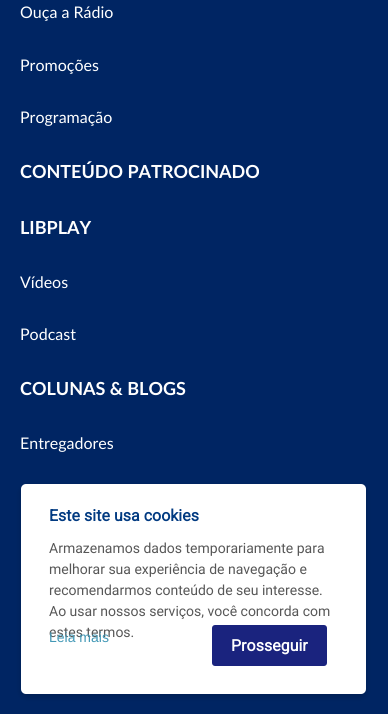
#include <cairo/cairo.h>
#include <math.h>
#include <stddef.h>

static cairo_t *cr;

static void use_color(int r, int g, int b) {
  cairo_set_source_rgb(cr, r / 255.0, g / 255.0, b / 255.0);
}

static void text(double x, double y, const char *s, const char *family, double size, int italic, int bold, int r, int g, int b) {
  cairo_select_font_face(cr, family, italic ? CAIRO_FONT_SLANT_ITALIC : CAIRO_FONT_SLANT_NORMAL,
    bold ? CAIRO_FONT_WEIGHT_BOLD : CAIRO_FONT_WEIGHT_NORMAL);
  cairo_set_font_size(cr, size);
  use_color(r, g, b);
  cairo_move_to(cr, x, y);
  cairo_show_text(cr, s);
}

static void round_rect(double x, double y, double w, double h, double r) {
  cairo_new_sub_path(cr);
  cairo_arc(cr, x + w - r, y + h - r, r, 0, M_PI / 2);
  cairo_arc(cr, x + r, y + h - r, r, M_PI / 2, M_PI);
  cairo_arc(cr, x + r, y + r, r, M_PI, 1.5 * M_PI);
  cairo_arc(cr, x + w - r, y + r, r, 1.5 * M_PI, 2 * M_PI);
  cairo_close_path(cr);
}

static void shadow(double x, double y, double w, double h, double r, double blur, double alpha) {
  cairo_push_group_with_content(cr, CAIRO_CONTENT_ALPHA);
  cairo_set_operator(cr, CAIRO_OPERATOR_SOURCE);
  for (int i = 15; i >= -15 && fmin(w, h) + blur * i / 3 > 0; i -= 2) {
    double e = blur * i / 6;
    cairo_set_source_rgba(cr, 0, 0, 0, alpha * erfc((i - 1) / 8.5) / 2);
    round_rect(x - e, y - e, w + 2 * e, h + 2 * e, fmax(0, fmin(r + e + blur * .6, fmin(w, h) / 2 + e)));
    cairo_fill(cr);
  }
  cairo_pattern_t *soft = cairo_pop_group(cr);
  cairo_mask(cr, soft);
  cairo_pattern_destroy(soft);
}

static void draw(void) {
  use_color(0, 37, 99);
  cairo_paint(cr);
  use_color(0, 0, 0);
  shadow(21, 487, 345, 210, 5, 3, 0.16);
  use_color(255, 255, 255);
  round_rect(21, 484, 345, 210, 5);
  cairo_fill(cr);
  use_color(26, 35, 126);
  round_rect(212, 625, 115, 41, 3);
  cairo_fill(cr);
  text(20, 18, "Ouça a Rádio", "Lato", 16, 0, 0, 255, 255, 255);
  text(20, 71, "Promoções", "Lato", 16, 0, 0, 255, 255, 255);
  text(20, 123, "Programação", "Lato", 16, 0, 0, 255, 255, 255);
  text(20, 178, "CONTEÚDO PATROCINADO", "Lato", 18, 0, 1, 255, 255, 255);
  text(20, 234, "LIBPLAY", "Lato", 18, 0, 1, 255, 255, 255);
  text(20, 288, "Vídeos", "Lato", 16, 0, 0, 255, 255, 255);
  text(20, 340, "Podcast", "Lato", 16, 0, 0, 255, 255, 255);
  text(20, 395, "COLUNAS & BLOGS", "Lato", 18, 0, 1, 255, 255, 255);
  text(20, 449, "Entregadores", "Lato", 16, 0, 0, 255, 255, 255);
  text(49, 521, "Este site usa cookies", "Roboto", 16, 0, 1, 1, 58, 129);
  text(49, 553, "Armazenamos dados temporariamente para", "Roboto", 14, 0, 0, 87, 87, 87);
  text(49, 574, "melhorar sua experiência de navegação e", "Roboto", 14, 0, 0, 87, 87, 87);
  text(49, 595, "recomendarmos conteúdo de seu interesse.", "Roboto", 14, 0, 0, 87, 87, 87);
  text(49, 616, "Ao usar nossos serviços, você concorda com", "Roboto", 14, 0, 0, 87, 87, 87);
  text(49, 637, "estes termos.", "Roboto", 14, 0, 0, 87, 87, 87);
  text(49, 642, "Leia mais", "Liberation Sans", 14, 0, 0, 66, 152, 182);
  text(231, 651, "Prosseguir", "Roboto", 16, 0, 1, 255, 255, 255);
}

int main(void) {
  cairo_surface_t *surface = cairo_image_surface_create(CAIRO_FORMAT_RGB24, 388, 714);
  cr = cairo_create(surface);
  cairo_font_options_t *options = cairo_font_options_create();
  cairo_font_options_set_hint_metrics(options, CAIRO_HINT_METRICS_OFF);
  cairo_font_options_set_hint_style(options, CAIRO_HINT_STYLE_NONE);
  cairo_set_font_options(cr, options);
  cairo_set_miter_limit(cr, 4);
  draw();
  cairo_surface_write_to_png(surface, "out.png");
  cairo_font_options_destroy(options);
  cairo_destroy(cr);
  cairo_surface_destroy(surface);
  return 0;
}
